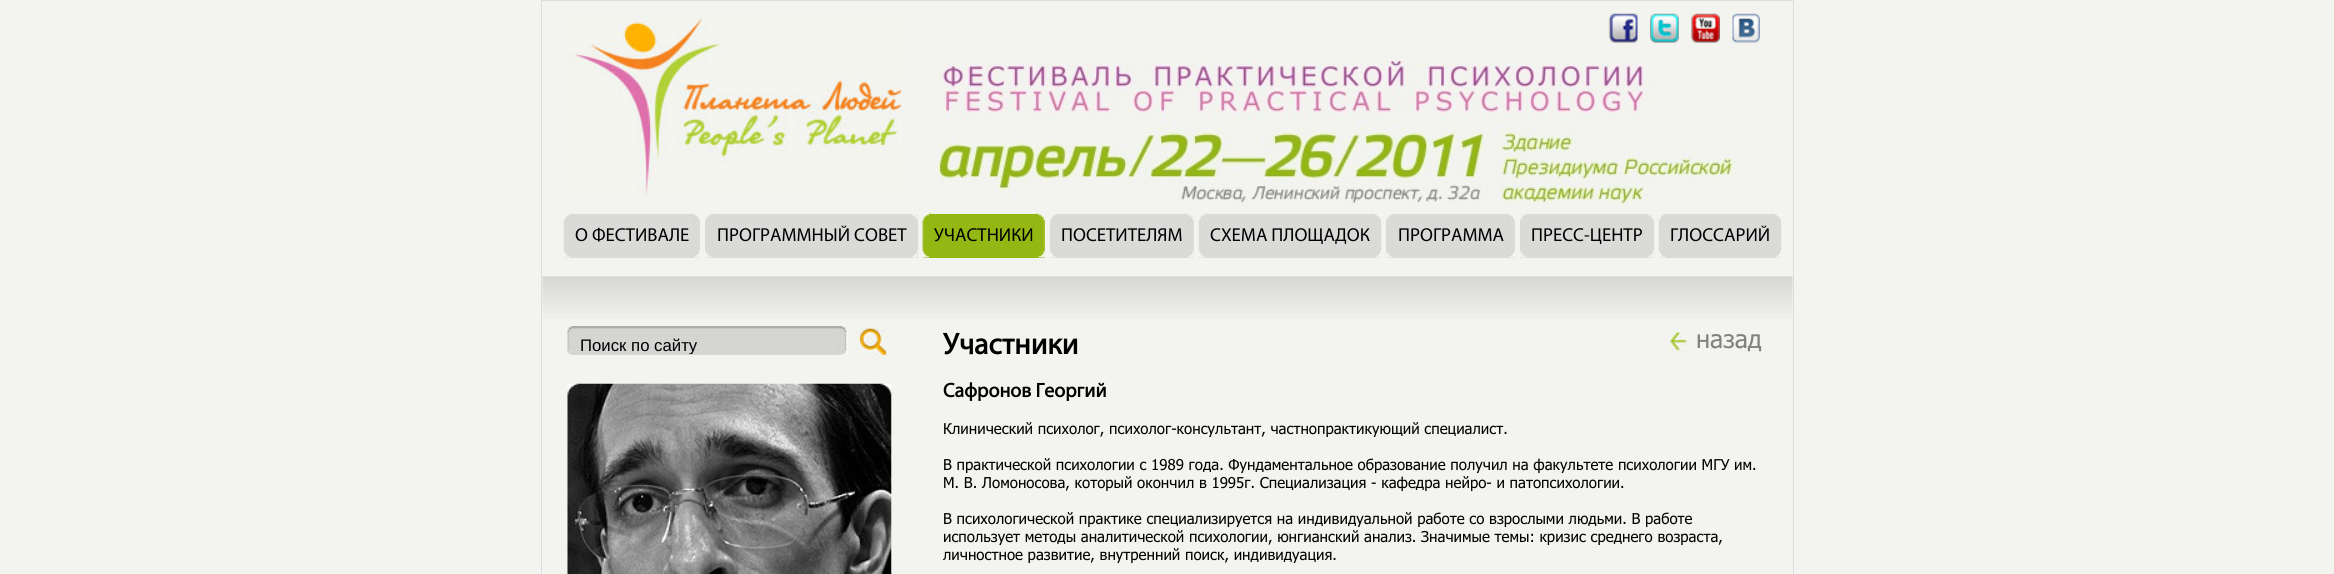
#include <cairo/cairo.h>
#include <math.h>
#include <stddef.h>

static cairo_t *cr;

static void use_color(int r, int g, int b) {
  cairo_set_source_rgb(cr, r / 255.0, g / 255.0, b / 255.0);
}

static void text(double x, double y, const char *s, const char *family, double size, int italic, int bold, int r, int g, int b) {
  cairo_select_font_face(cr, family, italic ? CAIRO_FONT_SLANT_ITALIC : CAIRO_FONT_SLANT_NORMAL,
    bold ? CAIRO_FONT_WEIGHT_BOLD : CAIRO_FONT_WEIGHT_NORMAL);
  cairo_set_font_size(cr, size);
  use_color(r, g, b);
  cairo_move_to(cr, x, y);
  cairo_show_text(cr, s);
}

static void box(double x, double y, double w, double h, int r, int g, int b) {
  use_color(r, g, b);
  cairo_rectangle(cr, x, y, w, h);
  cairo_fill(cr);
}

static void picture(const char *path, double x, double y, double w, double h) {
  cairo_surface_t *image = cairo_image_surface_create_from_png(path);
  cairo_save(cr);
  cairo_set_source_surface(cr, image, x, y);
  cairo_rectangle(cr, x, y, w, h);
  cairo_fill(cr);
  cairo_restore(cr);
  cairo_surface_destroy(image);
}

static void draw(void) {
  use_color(243, 244, 239);
  cairo_paint(cr);
  cairo_rectangle(cr, 541.5, 0.5, 1252, 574);
  use_color(221, 221, 221);
  cairo_set_line_width(cr, 1);
  cairo_stroke(cr);
  picture("img_01.png", 568, 14, 334, 182);
  picture("img_02.png", 1608, 13, 30, 30);
  picture("img_03.png", 1650, 13, 29, 30);
  picture("img_04.png", 1691, 13, 29, 30);
  picture("img_05.png", 1732, 13, 28, 30);
  picture("img_06.png", 938, 61, 800, 150);
  box(564, 214, 136, 44, 218, 218, 216);
  picture("img_07.png", 691, 213, 9, 45);
  picture("img_08.png", 563, 213, 9, 45);
  box(705, 214, 213, 44, 218, 218, 216);
  picture("img_09.png", 909, 213, 9, 45);
  picture("img_10.png", 705, 213, 9, 45);
  box(923, 214, 122, 44, 148, 184, 19);
  picture("img_11.png", 1036, 213, 9, 45);
  picture("img_12.png", 922, 213, 10, 45);
  box(1050, 214, 144, 44, 218, 218, 216);
  picture("img_13.png", 1185, 213, 9, 45);
  picture("img_10.png", 1050, 213, 9, 45);
  box(1199, 214, 182, 44, 218, 218, 216);
  picture("img_14.png", 1373, 213, 9, 45);
  picture("img_15.png", 1198, 213, 9, 45);
  box(1386, 214, 129, 44, 218, 218, 216);
  picture("img_07.png", 1506, 213, 9, 45);
  picture("img_16.png", 1386, 213, 9, 45);
  box(1520, 214, 134, 44, 218, 218, 216);
  picture("img_13.png", 1645, 213, 9, 45);
  picture("img_17.png", 1520, 213, 9, 45);
  box(1659, 214, 122, 44, 218, 218, 216);
  picture("img_14.png", 1773, 213, 9, 45);
  picture("img_08.png", 1658, 213, 9, 45);
  picture("img_18.png", 542, 276, 1251, 43);
  picture("img_19.png", 567, 326, 281, 29);
  picture("img_20.png", 855, 328, 32, 30);
  picture("img_21.png", 567, 383, 325, 191);
  picture("img_22.png", 1670, 328, 17, 25);
  text(575, 241, "О ФЕСТИВАЛЕ", "Myriad", 18.75, 0, 0, 0, 0, 0);
  text(717, 241, "ПРОГРАММНЫЙ СОВЕТ", "Myriad", 18.75, 0, 0, 0, 0, 0);
  text(934, 241, "УЧАСТНИКИ", "Myriad", 18.75, 0, 0, 0, 0, 0);
  text(1061, 241, "ПОСЕТИТЕЛЯМ", "Myriad", 18.75, 0, 0, 0, 0, 0);
  text(1210, 241, "СХЕМА ПЛОЩАДОК", "Myriad", 18.75, 0, 0, 0, 0, 0);
  text(1398, 241, "ПРОГРАММА", "Myriad", 18.75, 0, 0, 0, 0, 0);
  text(1531, 241, "ПРЕСС-ЦЕНТР", "Myriad", 18.75, 0, 0, 0, 0, 0);
  text(1670, 241, "ГЛОССАРИЙ", "Myriad", 18.75, 0, 0, 0, 0, 0);
  cairo_save(cr);
  cairo_rectangle(cr, 580, 335, 256, 19);
  cairo_clip(cr);
  text(580, 351, "Поиск по сайту", "Liberation Sans", 16.75, 0, 0, 0, 0, 0);
  cairo_restore(cr);
  text(943, 354, "Участники", "Myriad", 30, 0, 1, 0, 0, 0);
  text(1696, 348, "назад", "Tahoma", 25, 0, 0, 129, 130, 125);
  text(943, 397, "Сафронов Георгий", "Myriad", 20, 0, 1, 0, 0, 0);
  text(943, 434, "Клинический психолог, психолог-консультант, частнопрактикующий специалист.", "Tahoma", 15, 0, 0, 0, 0, 0);
  text(943, 470, "В практической психологии с 1989 года. Фундаментальное образование получил на факультете психологии МГУ им.", "Tahoma", 15, 0, 0, 0, 0, 0);
  text(943, 488, "М. В. Ломоносова, который окончил в 1995г. Специализация - кафедра нейро- и патопсихологии.", "Tahoma", 15, 0, 0, 0, 0, 0);
  text(943, 524, "В психологической практике специализируется на индивидуальной работе со взрослыми людьми. В работе", "Tahoma", 15, 0, 0, 0, 0, 0);
  text(943, 542, "использует методы аналитической психологии, юнгианский анализ. Значимые темы: кризис среднего возраста,", "Tahoma", 15, 0, 0, 0, 0, 0);
  text(943, 560, "личностное развитие, внутренний поиск, индивидуация.", "Tahoma", 15, 0, 0, 0, 0, 0);
}

int main(void) {
  cairo_surface_t *surface = cairo_image_surface_create(CAIRO_FORMAT_RGB24, 2334, 574);
  cr = cairo_create(surface);
  cairo_font_options_t *options = cairo_font_options_create();
  cairo_font_options_set_hint_metrics(options, CAIRO_HINT_METRICS_OFF);
  cairo_font_options_set_hint_style(options, CAIRO_HINT_STYLE_NONE);
  cairo_set_font_options(cr, options);
  cairo_set_miter_limit(cr, 4);
  draw();
  cairo_surface_write_to_png(surface, "out.png");
  cairo_font_options_destroy(options);
  cairo_destroy(cr);
  cairo_surface_destroy(surface);
  return 0;
}
